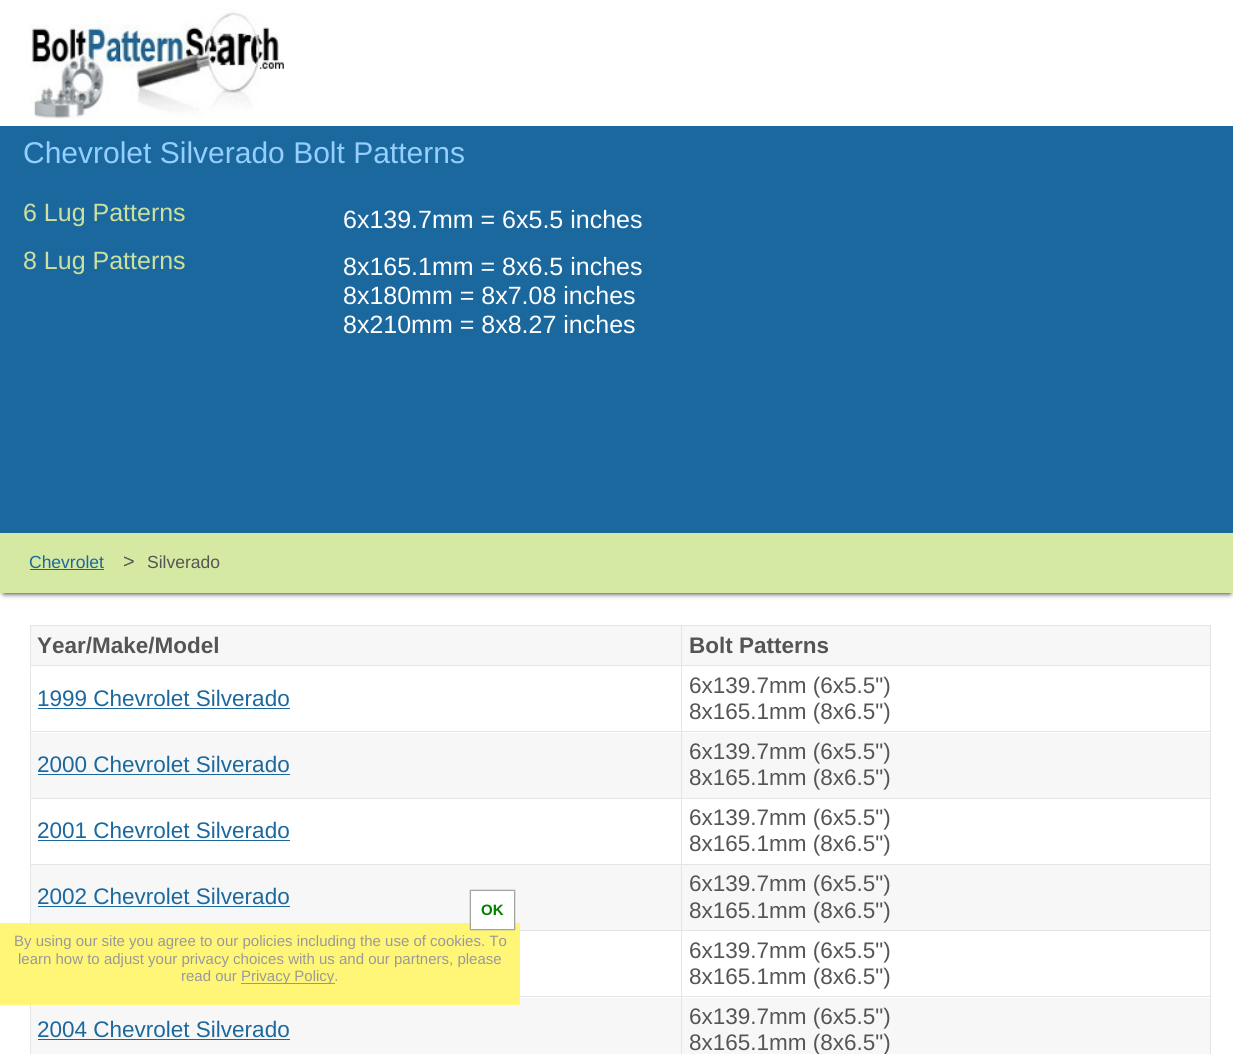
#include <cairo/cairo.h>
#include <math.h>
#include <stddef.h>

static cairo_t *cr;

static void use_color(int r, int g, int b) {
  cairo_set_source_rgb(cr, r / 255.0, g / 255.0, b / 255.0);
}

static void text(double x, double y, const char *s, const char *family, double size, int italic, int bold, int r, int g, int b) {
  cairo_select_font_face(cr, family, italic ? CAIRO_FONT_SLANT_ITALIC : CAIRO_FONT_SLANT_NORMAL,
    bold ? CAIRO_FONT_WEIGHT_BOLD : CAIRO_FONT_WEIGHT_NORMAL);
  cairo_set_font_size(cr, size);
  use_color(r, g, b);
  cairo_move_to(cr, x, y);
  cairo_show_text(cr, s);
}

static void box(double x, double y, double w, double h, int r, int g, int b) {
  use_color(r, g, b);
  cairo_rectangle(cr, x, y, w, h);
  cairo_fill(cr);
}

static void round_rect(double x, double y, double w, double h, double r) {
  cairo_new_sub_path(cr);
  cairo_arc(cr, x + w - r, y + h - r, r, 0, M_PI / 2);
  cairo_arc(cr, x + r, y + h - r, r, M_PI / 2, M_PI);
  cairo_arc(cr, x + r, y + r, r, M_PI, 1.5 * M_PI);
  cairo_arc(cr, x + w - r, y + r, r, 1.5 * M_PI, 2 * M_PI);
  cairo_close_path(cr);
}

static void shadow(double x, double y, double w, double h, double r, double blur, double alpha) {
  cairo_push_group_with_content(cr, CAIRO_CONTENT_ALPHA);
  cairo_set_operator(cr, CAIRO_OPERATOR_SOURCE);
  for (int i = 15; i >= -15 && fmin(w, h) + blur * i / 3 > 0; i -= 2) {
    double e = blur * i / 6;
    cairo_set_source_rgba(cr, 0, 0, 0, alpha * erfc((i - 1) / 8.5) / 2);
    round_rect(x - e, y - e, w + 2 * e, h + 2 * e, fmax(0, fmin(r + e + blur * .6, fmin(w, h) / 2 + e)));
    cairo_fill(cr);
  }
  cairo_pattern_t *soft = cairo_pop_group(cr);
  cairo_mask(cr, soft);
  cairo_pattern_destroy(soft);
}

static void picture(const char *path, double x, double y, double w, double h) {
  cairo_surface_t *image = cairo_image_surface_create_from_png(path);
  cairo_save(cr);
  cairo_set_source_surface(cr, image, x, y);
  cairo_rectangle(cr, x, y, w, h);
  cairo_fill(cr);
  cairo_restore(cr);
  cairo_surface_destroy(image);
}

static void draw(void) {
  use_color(255, 255, 255);
  cairo_paint(cr);
  picture("img_01.png", 30, 8, 254, 111);
  box(0, 126, 1233, 407, 27, 104, 158);
  use_color(0, 0, 0);
  shadow(4, 540, 1226, 53, 0, 3, 1);
  box(0, 533, 1233, 60, 213, 233, 162);
  box(30, 569, 74, 1, 27, 104, 158);
  box(31, 626, 1179, 39, 247, 247, 247);
  box(681, 625, 530, 1, 229, 229, 229);
  box(681, 665, 530, 1, 229, 229, 229);
  box(681, 731, 530, 1, 229, 229, 229);
  box(31, 733, 1179, 65, 247, 247, 247);
  box(681, 798, 530, 1, 229, 229, 229);
  box(681, 864, 530, 1, 229, 229, 229);
  box(31, 865, 1179, 65, 247, 247, 247);
  box(681, 930, 530, 1, 229, 229, 229);
  box(681, 996, 530, 1, 229, 229, 229);
  box(31, 998, 1179, 56, 247, 247, 247);
  box(681, 996, 1, 58, 229, 229, 229);
  box(520, 996, 163, 1, 229, 229, 229);
  box(681, 930, 1, 68, 229, 229, 229);
  box(520, 930, 163, 1, 229, 229, 229);
  box(681, 864, 1, 67, 229, 229, 229);
  box(30, 864, 653, 1, 229, 229, 229);
  box(681, 798, 1, 67, 229, 229, 229);
  box(30, 798, 653, 1, 229, 229, 229);
  box(681, 731, 1, 68, 229, 229, 229);
  box(30, 731, 653, 1, 229, 229, 229);
  box(681, 665, 1, 68, 229, 229, 229);
  box(30, 665, 653, 1, 229, 229, 229);
  box(681, 625, 1, 41, 229, 229, 229);
  box(30, 625, 653, 1, 229, 229, 229);
  box(30, 864, 1, 67, 229, 229, 229);
  box(30, 798, 1, 67, 229, 229, 229);
  box(30, 731, 1, 68, 229, 229, 229);
  box(30, 665, 1, 68, 229, 229, 229);
  box(30, 625, 1, 41, 229, 229, 229);
  box(1210, 996, 1, 58, 229, 229, 229);
  box(1210, 930, 1, 68, 229, 229, 229);
  box(1210, 864, 1, 67, 229, 229, 229);
  box(1210, 798, 1, 67, 229, 229, 229);
  box(1210, 731, 1, 68, 229, 229, 229);
  box(1210, 665, 1, 68, 229, 229, 229);
  box(1210, 625, 1, 41, 229, 229, 229);
  box(38, 708, 252, 1, 27, 104, 158);
  box(38, 774, 252, 1, 27, 104, 158);
  box(38, 840, 252, 1, 27, 104, 158);
  box(38, 906, 252, 1, 27, 104, 158);
  box(30, 1005, 1, 49, 229, 229, 229);
  box(38, 1039, 252, 1, 27, 104, 158);
  box(0, 923, 520, 82, 255, 246, 120);
  use_color(153, 153, 153);
  shadow(470, 890, 45, 40, 0, 0.5, 1);
  box(471, 891, 43, 38, 255, 255, 255);
  box(241, 983, 94, 1, 153, 153, 153);
  text(23, 163, "Chevrolet Silverado Bolt Patterns", "Liberation Sans", 30, 0, 0, 148, 207, 254);
  text(23, 221, "6 Lug Patterns", "Liberation Sans", 25, 0, 0, 206, 224, 158);
  text(343, 228, "6x139.7mm = 6x5.5 inches", "Liberation Sans", 25, 0, 0, 255, 255, 255);
  text(23, 269, "8 Lug Patterns", "Liberation Sans", 25, 0, 0, 206, 224, 158);
  text(343, 275, "8x165.1mm = 8x6.5 inches", "Liberation Sans", 25, 0, 0, 255, 255, 255);
  text(343, 304, "8x180mm = 8x7.08 inches", "Liberation Sans", 25, 0, 0, 255, 255, 255);
  text(343, 333, "8x210mm = 8x8.27 inches", "Liberation Sans", 25, 0, 0, 255, 255, 255);
  text(29, 568, "Chevrolet", "Liberation Sans", 17.5, 0, 0, 27, 104, 158);
  text(123, 568, ">", "Liberation Sans", 20, 0, 0, 85, 85, 85);
  text(147, 568, "Silverado", "Liberation Sans", 17.5, 0, 0, 85, 85, 85);
  text(37, 653, "Year/Make/Model", "Liberation Sans", 22.5, 0, 1, 85, 85, 85);
  text(689, 653, "Bolt Patterns", "Liberation Sans", 22.5, 0, 1, 85, 85, 85);
  text(37, 706, "1999 Chevrolet Silverado", "Liberation Sans", 22.5, 0, 0, 27, 104, 158);
  text(689, 693, "6x139.7mm (6x5.5\")", "Liberation Sans", 22.5, 0, 0, 85, 85, 85);
  text(689, 719, "8x165.1mm (8x6.5\")", "Liberation Sans", 22.5, 0, 0, 85, 85, 85);
  text(37, 772, "2000 Chevrolet Silverado", "Liberation Sans", 22.5, 0, 0, 27, 104, 158);
  text(689, 759, "6x139.7mm (6x5.5\")", "Liberation Sans", 22.5, 0, 0, 85, 85, 85);
  text(689, 785, "8x165.1mm (8x6.5\")", "Liberation Sans", 22.5, 0, 0, 85, 85, 85);
  text(37, 838, "2001 Chevrolet Silverado", "Liberation Sans", 22.5, 0, 0, 27, 104, 158);
  text(689, 825, "6x139.7mm (6x5.5\")", "Liberation Sans", 22.5, 0, 0, 85, 85, 85);
  text(689, 851, "8x165.1mm (8x6.5\")", "Liberation Sans", 22.5, 0, 0, 85, 85, 85);
  text(37, 904, "2002 Chevrolet Silverado", "Liberation Sans", 22.5, 0, 0, 27, 104, 158);
  text(689, 891, "6x139.7mm (6x5.5\")", "Liberation Sans", 22.5, 0, 0, 85, 85, 85);
  text(689, 918, "8x165.1mm (8x6.5\")", "Liberation Sans", 22.5, 0, 0, 85, 85, 85);
  text(689, 958, "6x139.7mm (6x5.5\")", "Liberation Sans", 22.5, 0, 0, 85, 85, 85);
  text(689, 984, "8x165.1mm (8x6.5\")", "Liberation Sans", 22.5, 0, 0, 85, 85, 85);
  text(37, 1037, "2004 Chevrolet Silverado", "Liberation Sans", 22.5, 0, 0, 27, 104, 158);
  text(689, 1024, "6x139.7mm (6x5.5\")", "Liberation Sans", 22.5, 0, 0, 85, 85, 85);
  text(689, 1050, "8x165.1mm (8x6.5\")", "Liberation Sans", 22.5, 0, 0, 85, 85, 85);
  text(481, 915, "OK", "Liberation Sans", 15, 0, 1, 0, 128, 0);
  text(14, 946, "By using our site you agree to our policies including the use of cookies. To", "Liberation Sans", 15, 0, 0, 153, 153, 153);
  text(18, 964, "learn how to adjust your privacy choices with us and our partners, please", "Liberation Sans", 15, 0, 0, 153, 153, 153);
  text(181, 981, "read our", "Liberation Sans", 15, 0, 0, 153, 153, 153);
  text(241, 981, "Privacy Policy.", "Liberation Sans", 15, 0, 0, 153, 153, 153);
}

int main(void) {
  cairo_surface_t *surface = cairo_image_surface_create(CAIRO_FORMAT_RGB24, 1233, 1054);
  cr = cairo_create(surface);
  cairo_font_options_t *options = cairo_font_options_create();
  cairo_font_options_set_hint_metrics(options, CAIRO_HINT_METRICS_OFF);
  cairo_font_options_set_hint_style(options, CAIRO_HINT_STYLE_NONE);
  cairo_set_font_options(cr, options);
  cairo_set_miter_limit(cr, 4);
  draw();
  cairo_surface_write_to_png(surface, "out.png");
  cairo_font_options_destroy(options);
  cairo_destroy(cr);
  cairo_surface_destroy(surface);
  return 0;
}
